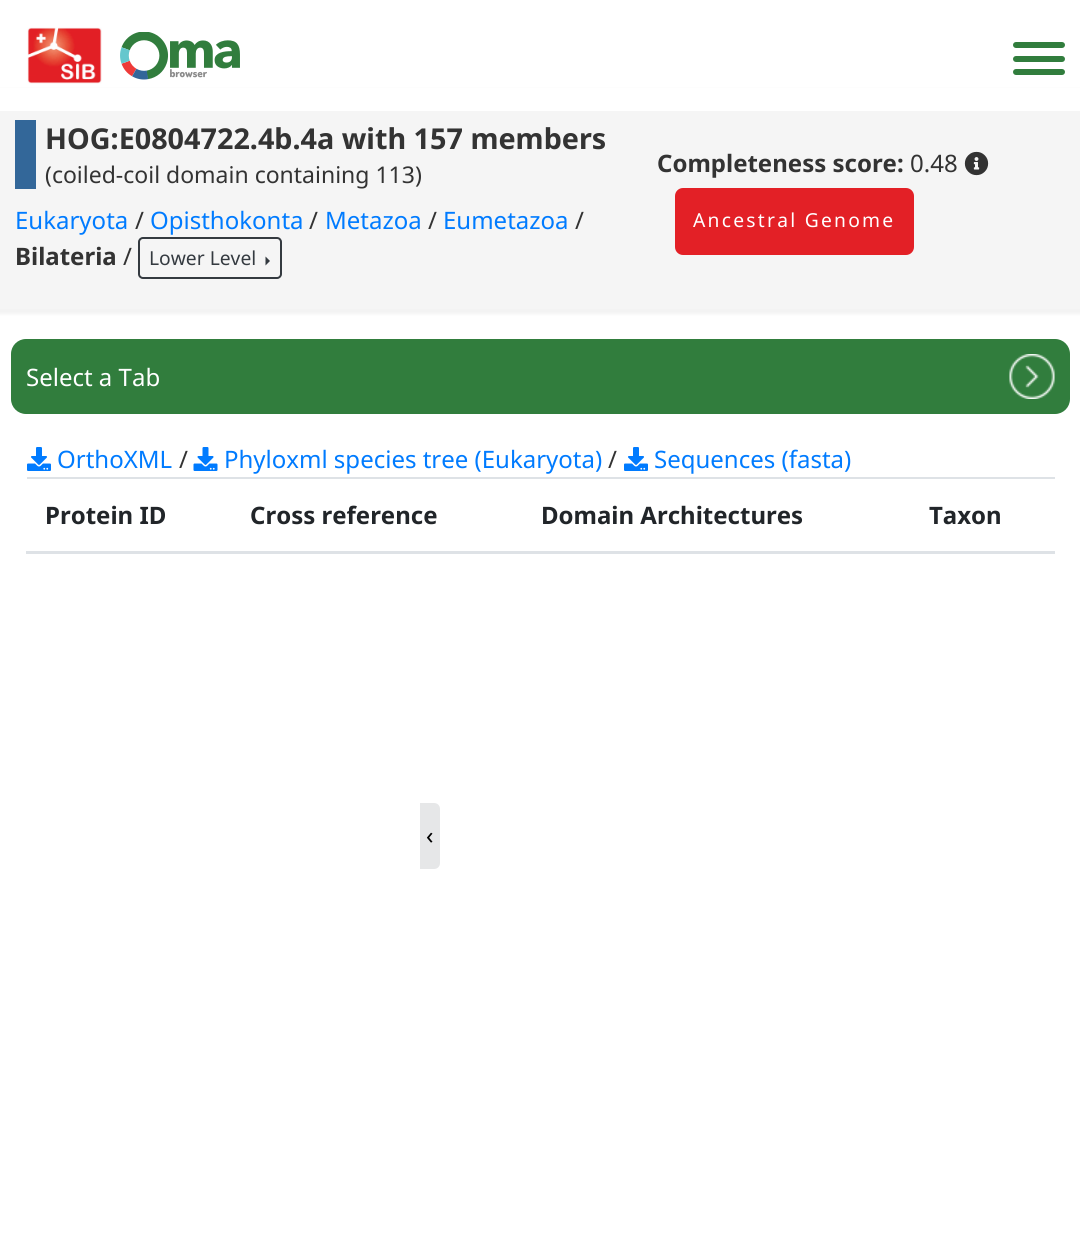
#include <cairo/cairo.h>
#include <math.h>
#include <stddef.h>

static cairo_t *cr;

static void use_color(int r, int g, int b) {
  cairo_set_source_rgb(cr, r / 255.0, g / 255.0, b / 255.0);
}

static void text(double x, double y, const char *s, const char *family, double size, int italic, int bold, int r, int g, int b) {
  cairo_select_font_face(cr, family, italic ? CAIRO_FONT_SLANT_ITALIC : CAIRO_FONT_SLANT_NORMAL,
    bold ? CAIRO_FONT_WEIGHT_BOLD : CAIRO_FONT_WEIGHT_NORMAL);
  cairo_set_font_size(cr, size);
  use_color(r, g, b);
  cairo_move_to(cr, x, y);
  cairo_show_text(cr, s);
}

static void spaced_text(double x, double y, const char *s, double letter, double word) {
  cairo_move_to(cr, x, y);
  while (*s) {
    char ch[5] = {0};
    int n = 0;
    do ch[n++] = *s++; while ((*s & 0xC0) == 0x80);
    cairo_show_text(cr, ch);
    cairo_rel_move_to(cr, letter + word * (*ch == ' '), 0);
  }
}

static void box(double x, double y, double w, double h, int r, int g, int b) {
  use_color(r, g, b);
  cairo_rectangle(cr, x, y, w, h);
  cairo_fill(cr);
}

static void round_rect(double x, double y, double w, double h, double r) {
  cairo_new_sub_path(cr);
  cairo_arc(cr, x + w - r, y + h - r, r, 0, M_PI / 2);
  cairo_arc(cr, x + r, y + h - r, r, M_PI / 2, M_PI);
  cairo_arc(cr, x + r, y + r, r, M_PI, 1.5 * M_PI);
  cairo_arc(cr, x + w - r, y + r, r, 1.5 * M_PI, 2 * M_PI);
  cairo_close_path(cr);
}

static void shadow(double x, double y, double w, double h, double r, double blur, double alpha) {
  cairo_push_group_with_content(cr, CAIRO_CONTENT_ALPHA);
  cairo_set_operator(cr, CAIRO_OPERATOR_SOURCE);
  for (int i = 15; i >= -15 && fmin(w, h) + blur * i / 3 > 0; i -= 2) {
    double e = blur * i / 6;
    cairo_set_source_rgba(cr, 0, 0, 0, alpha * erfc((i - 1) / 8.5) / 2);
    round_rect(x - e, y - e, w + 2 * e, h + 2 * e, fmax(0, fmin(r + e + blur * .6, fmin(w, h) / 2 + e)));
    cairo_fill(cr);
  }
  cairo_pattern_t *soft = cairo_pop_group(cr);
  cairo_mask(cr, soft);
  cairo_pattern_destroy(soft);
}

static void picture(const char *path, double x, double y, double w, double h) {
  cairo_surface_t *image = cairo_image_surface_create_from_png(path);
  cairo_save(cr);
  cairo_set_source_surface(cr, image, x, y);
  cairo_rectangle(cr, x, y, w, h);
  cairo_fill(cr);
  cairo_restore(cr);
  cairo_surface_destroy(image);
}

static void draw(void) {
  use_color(255, 255, 255);
  cairo_paint(cr);
  use_color(0, 0, 0);
  shadow(-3, 89, 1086, 225, 0, 1.5, 0.05);
  box(0, 88, 1080, 23, 255, 255, 255);
  picture("img_01.png", 27, 27, 75, 57);
  picture("img_02.png", 120, 32, 120, 48);
  use_color(49, 125, 61);
  round_rect(1013, 42, 52, 6, 3);
  cairo_fill(cr);
  round_rect(1013, 56, 52, 6, 3);
  cairo_fill(cr);
  round_rect(1013, 69, 52, 6, 3);
  cairo_fill(cr);
  box(0, 111, 1080, 198, 245, 245, 245);
  box(15, 120, 21, 69, 51, 103, 153);
  round_rect(139, 238, 142, 40, 4);
  use_color(52, 58, 64);
  cairo_stroke(cr);
  cairo_new_path(cr);
  cairo_move_to(cr, 265.5, 265.5);
  cairo_line_to(cr, 265.5, 256.5);
  cairo_line_to(cr, 270, 261);
  cairo_close_path(cr);
  cairo_fill(cr);
  picture("img_03.png", 964, 151, 25, 25);
  use_color(227, 32, 38);
  round_rect(675, 188, 239, 67, 8);
  cairo_fill(cr);
  use_color(49, 125, 61);
  round_rect(11, 339, 1059, 75, 15);
  cairo_fill(cr);
  picture("img_04.png", 1009, 354, 46, 45);
  picture("img_05.png", 27, 447, 24, 24);
  picture("img_06.png", 193, 447, 25, 24);
  picture("img_05.png", 624, 447, 24, 24);
  box(27, 477, 1028, 2, 222, 226, 230);
  box(26, 551, 1029, 3, 222, 226, 230);
  use_color(230, 231, 232);
  cairo_new_path(cr);
  cairo_move_to(cr, 420, 803);
  cairo_line_to(cr, 434, 803);
  cairo_curve_to(cr, 437.5, 803, 440, 805.5, 440, 809);
  cairo_line_to(cr, 440, 863);
  cairo_curve_to(cr, 440, 866.5, 437.5, 869, 434, 869);
  cairo_line_to(cr, 420, 869);
  cairo_close_path(cr);
  cairo_fill(cr);
  text(45, 149, "HOG:E0804722.4b.4a with 157 members", "Noto Sans", 28.75, 0, 1, 51, 51, 51);
  text(45, 183, "(coiled-coil domain containing 113)", "Noto Sans", 23, 0, 0, 51, 51, 51);
  text(15, 229, "Eukaryota", "Noto Sans", 24, 0, 0, 0, 123, 255);
  text(135, 229, "/", "Noto Sans", 24, 0, 0, 51, 51, 51);
  text(150, 229, "Opisthokonta", "Noto Sans", 24, 0, 0, 0, 123, 255);
  text(309, 229, "/", "Noto Sans", 24, 0, 0, 51, 51, 51);
  text(325, 229, "Metazoa", "Noto Sans", 24, 0, 0, 0, 123, 255);
  text(428, 229, "/", "Noto Sans", 24, 0, 0, 51, 51, 51);
  text(443, 229, "Eumetazoa", "Noto Sans", 24, 0, 0, 0, 123, 255);
  text(575, 229, "/", "Noto Sans", 24, 0, 0, 51, 51, 51);
  text(15, 265, "Bilateria", "Noto Sans", 24, 0, 1, 51, 51, 51);
  text(123, 265, "/", "Noto Sans", 24, 0, 0, 51, 51, 51);
  text(149, 265, "Lower Level", "Noto Sans", 19.25, 0, 0, 52, 58, 64);
  text(657, 172, "Completeness score:", "Noto Sans", 24, 0, 1, 51, 51, 51);
  text(910, 172, "0.48", "Noto Sans", 24, 0, 0, 51, 51, 51);
  cairo_set_font_size(cr, 19.25);
  use_color(255, 255, 255);
  spaced_text(693, 227, "Ancestral Genome", 2.25, 0);
  text(26, 386, "Select a Tab", "Noto Sans", 24, 0, 0, 255, 255, 255);
  text(57, 468, "OrthoXML", "Noto Sans", 24, 0, 0, 0, 123, 255);
  text(179, 468, "/", "Noto Sans", 24, 0, 0, 51, 51, 51);
  text(224, 468, "Phyloxml species tree (Eukaryota)", "Noto Sans", 24, 0, 0, 0, 123, 255);
  text(608, 468, "/", "Noto Sans", 24, 0, 0, 51, 51, 51);
  text(654, 468, "Sequences (fasta)", "Noto Sans", 24, 0, 0, 0, 123, 255);
  text(45, 524, "Protein ID", "Noto Sans", 24, 0, 1, 33, 37, 41);
  text(250, 524, "Cross reference", "Noto Sans", 24, 0, 1, 33, 37, 41);
  text(541, 524, "Domain Architectures", "Noto Sans", 24, 0, 1, 33, 37, 41);
  text(929, 524, "Taxon", "Noto Sans", 24, 0, 1, 33, 37, 41);
  text(426, 844, "‹", "Noto Sans", 24, 0, 0, 0, 0, 0);
}

int main(void) {
  cairo_surface_t *surface = cairo_image_surface_create(CAIRO_FORMAT_RGB24, 1080, 1234);
  cr = cairo_create(surface);
  cairo_font_options_t *options = cairo_font_options_create();
  cairo_font_options_set_hint_metrics(options, CAIRO_HINT_METRICS_OFF);
  cairo_font_options_set_hint_style(options, CAIRO_HINT_STYLE_NONE);
  cairo_set_font_options(cr, options);
  cairo_set_miter_limit(cr, 4);
  draw();
  cairo_surface_write_to_png(surface, "out.png");
  cairo_font_options_destroy(options);
  cairo_destroy(cr);
  cairo_surface_destroy(surface);
  return 0;
}
